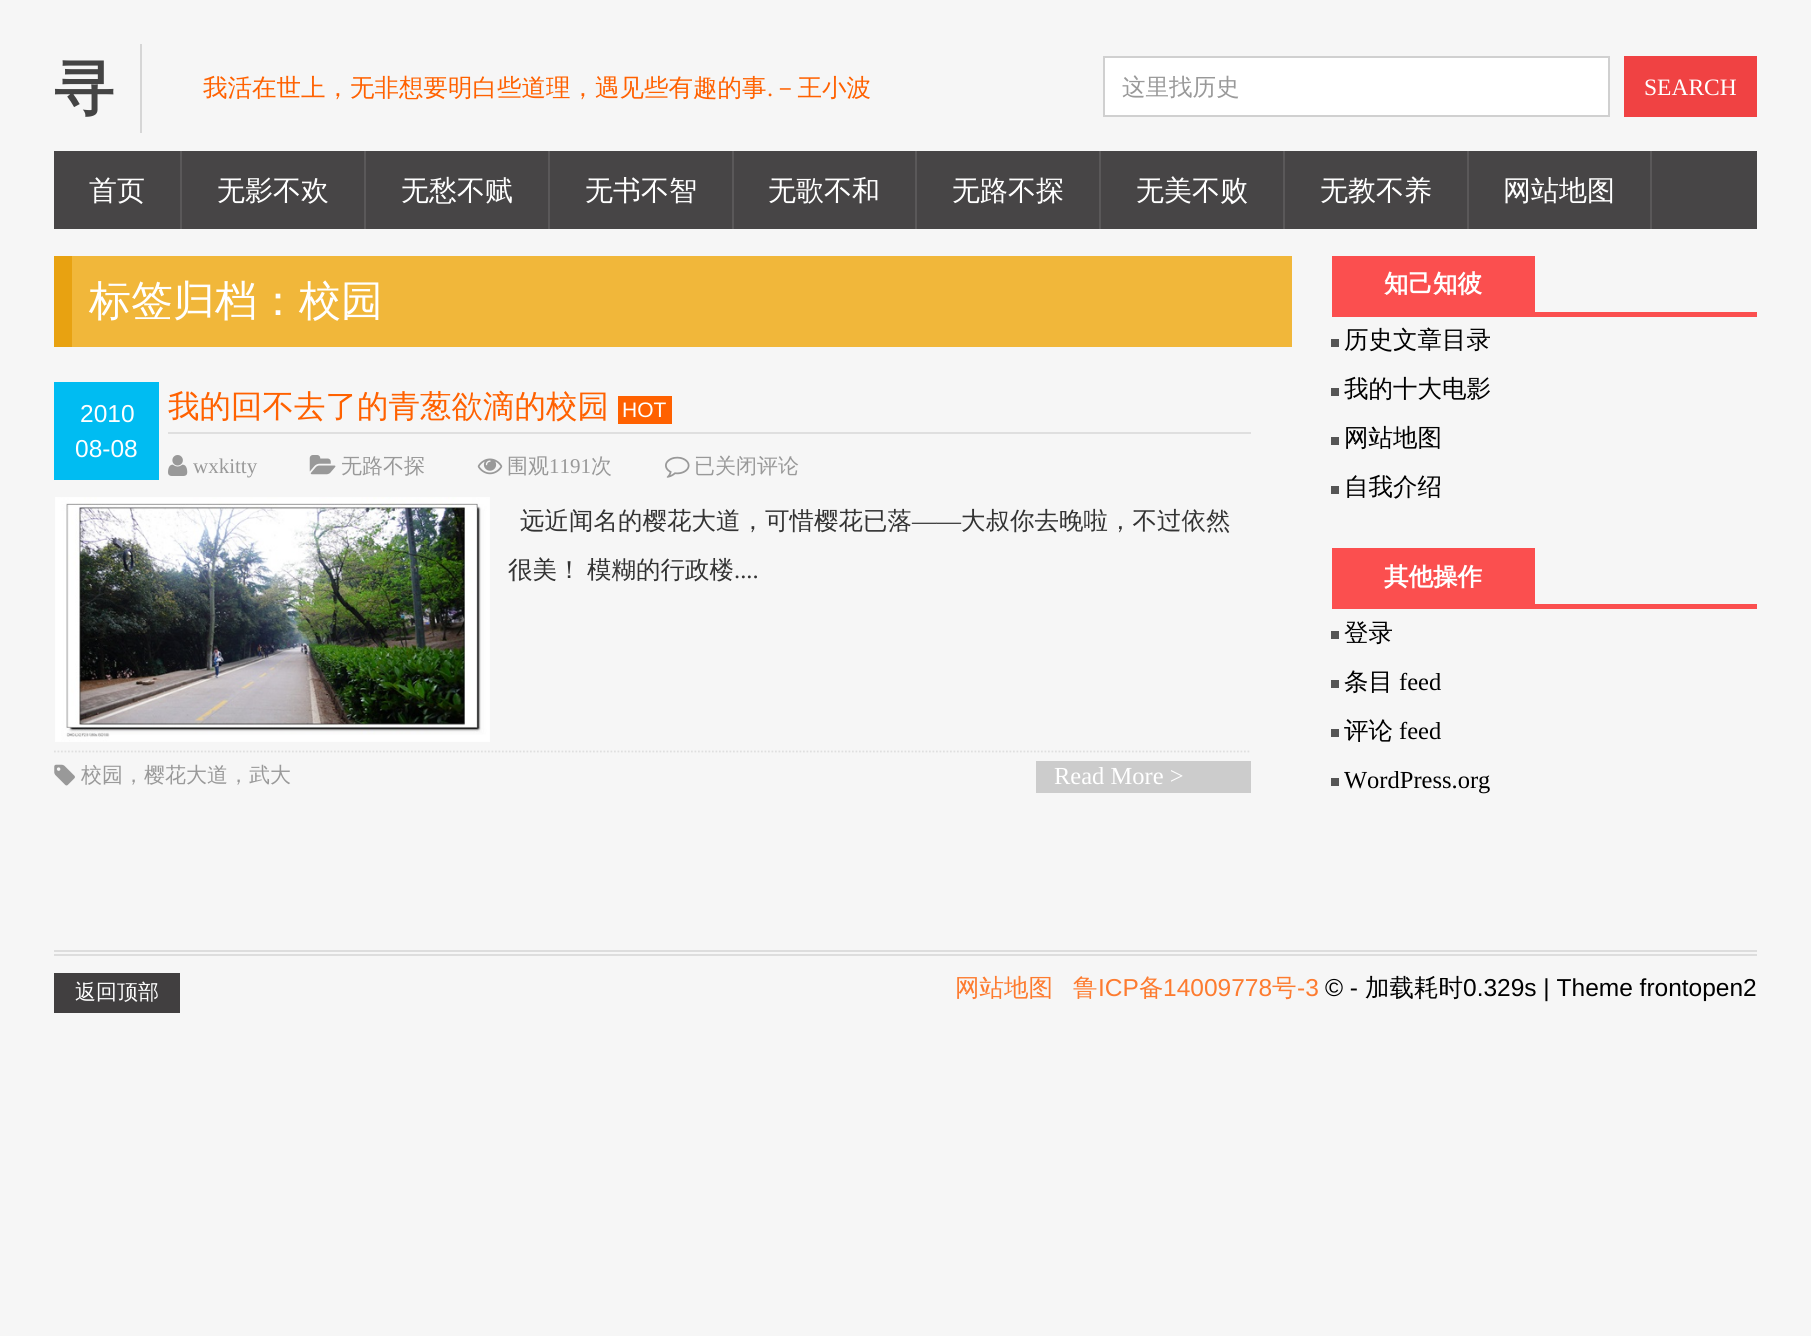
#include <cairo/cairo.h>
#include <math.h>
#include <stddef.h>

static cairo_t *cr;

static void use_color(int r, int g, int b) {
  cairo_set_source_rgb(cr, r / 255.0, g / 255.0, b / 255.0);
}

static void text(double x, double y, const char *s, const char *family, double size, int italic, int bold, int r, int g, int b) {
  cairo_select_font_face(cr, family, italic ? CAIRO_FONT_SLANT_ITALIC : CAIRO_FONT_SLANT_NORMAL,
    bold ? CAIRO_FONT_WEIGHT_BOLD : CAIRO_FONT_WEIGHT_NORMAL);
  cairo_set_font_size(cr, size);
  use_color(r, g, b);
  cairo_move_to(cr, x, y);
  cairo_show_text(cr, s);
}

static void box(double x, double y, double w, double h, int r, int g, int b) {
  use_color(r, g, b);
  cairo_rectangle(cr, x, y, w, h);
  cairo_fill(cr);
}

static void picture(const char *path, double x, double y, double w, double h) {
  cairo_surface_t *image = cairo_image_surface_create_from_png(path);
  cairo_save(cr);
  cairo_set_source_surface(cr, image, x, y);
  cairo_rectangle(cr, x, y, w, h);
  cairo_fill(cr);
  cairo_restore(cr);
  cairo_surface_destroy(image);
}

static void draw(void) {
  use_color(246, 246, 246);
  cairo_paint(cr);
  box(140, 44, 2, 89, 214, 214, 214);
  use_color(255, 255, 255);
  cairo_rectangle(cr, 1104, 57, 505, 59);
  cairo_fill_preserve(cr);
  use_color(208, 208, 208);
  cairo_stroke(cr);
  box(1624, 56, 133, 61, 240, 66, 67);
  box(54, 151, 1703, 78, 71, 69, 70);
  box(180, 151, 2, 78, 90, 88, 89);
  box(364, 151, 2, 78, 90, 88, 89);
  box(548, 151, 2, 78, 90, 88, 89);
  box(732, 151, 2, 78, 90, 88, 89);
  box(915, 151, 2, 78, 90, 88, 89);
  box(1099, 151, 2, 78, 90, 88, 89);
  box(1283, 151, 2, 78, 90, 88, 89);
  box(1467, 151, 2, 78, 90, 88, 89);
  box(1650, 151, 2, 78, 90, 88, 89);
  box(72, 256, 1220, 91, 241, 183, 58);
  box(54, 256, 18, 91, 232, 162, 17);
  box(54, 382, 105, 98, 0, 188, 242);
  box(168, 432, 1083, 2, 223, 223, 223);
  box(618, 396, 54, 28, 255, 97, 0);
  picture("img_01.png", 168, 455, 20, 21);
  picture("img_02.png", 309, 455, 27, 20);
  picture("img_03.png", 477, 458, 26, 17);
  picture("img_04.png", 665, 456, 25, 22);
  picture("img_05.png", 54, 764, 21, 22);
  cairo_new_path(cr);
  cairo_move_to(cr, 54, 751.5);
  cairo_line_to(cr, 1251, 751.5);
  use_color(223, 223, 223);
  cairo_set_line_width(cr, 1.8);
  cairo_set_dash(cr, (double[]){1.75, 1.75}, 2, 0);
  cairo_stroke(cr);
  picture("img_06.png", 55, 497, 435, 245);
  box(1036, 761, 215, 32, 204, 204, 204);
  box(1332, 256, 203, 56, 251, 79, 79);
  box(1332, 312, 425, 5, 251, 79, 79);
  box(1331, 339, 8, 8, 85, 85, 85);
  box(1331, 388, 8, 8, 85, 85, 85);
  box(1331, 437, 8, 8, 85, 85, 85);
  box(1331, 486, 8, 8, 85, 85, 85);
  box(1332, 548, 203, 56, 251, 79, 79);
  box(1332, 604, 425, 5, 251, 79, 79);
  box(1331, 631, 8, 8, 85, 85, 85);
  box(1331, 680, 8, 8, 85, 85, 85);
  box(1331, 729, 8, 8, 85, 85, 85);
  box(1331, 778, 8, 8, 85, 85, 85);
  box(54, 950, 1703, 2, 221, 221, 221);
  box(54, 954, 1703, 2, 221, 221, 221);
  box(54, 973, 126, 40, 65, 63, 64);
  text(54, 109, "寻", "WenQuanYi Zen Hei", 60, 0, 1, 68, 68, 68);
  text(203, 96, "我活在世上，无非想要明白些道理，遇见些有趣的事", "WenQuanYi Zen Hei Medium", 24.5, 0, 0, 255, 97, 0);
  text(767, 96, ".", "Liberation Serif", 24.5, 0, 0, 255, 97, 0);
  text(773, 96, "－王小波", "WenQuanYi Zen Hei Medium", 24.5, 0, 0, 255, 97, 0);
  text(1122, 95, "这里找历史", "WenQuanYi Zen Hei Medium", 23.5, 0, 0, 153, 153, 153);
  text(1644, 95, "SEARCH", "Liberation Serif", 23.5, 0, 0, 255, 255, 255);
  text(89, 200, "首页", "WenQuanYi Zen Hei Medium", 28, 0, 0, 255, 255, 255);
  text(217, 200, "无影不欢", "WenQuanYi Zen Hei Medium", 28, 0, 0, 255, 255, 255);
  text(401, 200, "无愁不赋", "WenQuanYi Zen Hei Medium", 28, 0, 0, 255, 255, 255);
  text(585, 200, "无书不智", "WenQuanYi Zen Hei Medium", 28, 0, 0, 255, 255, 255);
  text(768, 200, "无歌不和", "WenQuanYi Zen Hei Medium", 28, 0, 0, 255, 255, 255);
  text(952, 200, "无路不探", "WenQuanYi Zen Hei Medium", 28, 0, 0, 255, 255, 255);
  text(1136, 200, "无美不败", "WenQuanYi Zen Hei Medium", 28, 0, 0, 255, 255, 255);
  text(1320, 200, "无教不养", "WenQuanYi Zen Hei Medium", 28, 0, 0, 255, 255, 255);
  text(1503, 200, "网站地图", "WenQuanYi Zen Hei Medium", 28, 0, 0, 255, 255, 255);
  text(89, 315, "标签归档：校园", "WenQuanYi Zen Hei Medium", 42, 0, 0, 255, 255, 255);
  text(80, 422, "2010", "Liberation Sans", 24.5, 0, 0, 255, 255, 255);
  text(75, 457, "08-08", "Liberation Sans", 24.5, 0, 0, 255, 255, 255);
  text(168, 417, "我的回不去了的青葱欲滴的校园", "WenQuanYi Zen Hei Medium", 31.5, 0, 0, 255, 97, 0);
  text(622, 417, "HOT", "Liberation Sans", 21, 0, 0, 255, 255, 255);
  text(193, 473, "wxkitty", "Liberation Serif", 21, 0, 0, 153, 153, 153);
  text(341, 473, "无路不探", "WenQuanYi Zen Hei Medium", 21, 0, 0, 153, 153, 153);
  text(507, 473, "围观", "WenQuanYi Zen Hei Medium", 21, 0, 0, 153, 153, 153);
  text(549, 473, "1191", "Liberation Serif", 21, 0, 0, 153, 153, 153);
  text(591, 473, "次", "WenQuanYi Zen Hei Medium", 21, 0, 0, 153, 153, 153);
  text(694, 473, "已关闭评论", "WenQuanYi Zen Hei Medium", 21, 0, 0, 153, 153, 153);
  text(81, 782, "校园，樱花大道，武大", "WenQuanYi Zen Hei Medium", 21, 0, 0, 153, 153, 153);
  text(520, 529, "远近闻名的樱花大道，可惜樱花已落", "WenQuanYi Zen Hei Medium", 24.5, 0, 0, 51, 51, 51);
  text(912, 529, "——", "Liberation Serif", 24.5, 0, 0, 51, 51, 51);
  text(961, 529, "大叔你去晚啦，不过依然", "WenQuanYi Zen Hei Medium", 24.5, 0, 0, 51, 51, 51);
  text(508, 578, "很美！", "WenQuanYi Zen Hei Medium", 24.5, 0, 0, 51, 51, 51);
  text(587, 578, "模糊的行政楼", "WenQuanYi Zen Hei Medium", 24.5, 0, 0, 51, 51, 51);
  text(734, 578, "....", "Liberation Serif", 24.5, 0, 0, 51, 51, 51);
  text(1054, 784, "Read More >", "Liberation Serif", 24.5, 0, 0, 255, 255, 255);
  text(1384, 292, "知己知彼", "WenQuanYi Zen Hei", 24.5, 0, 1, 255, 255, 255);
  text(1344, 348, "历史文章目录", "WenQuanYi Zen Hei Medium", 24.5, 0, 0, 0, 0, 0);
  text(1344, 397, "我的十大电影", "WenQuanYi Zen Hei Medium", 24.5, 0, 0, 0, 0, 0);
  text(1344, 446, "网站地图", "WenQuanYi Zen Hei Medium", 24.5, 0, 0, 0, 0, 0);
  text(1344, 495, "自我介绍", "WenQuanYi Zen Hei Medium", 24.5, 0, 0, 0, 0, 0);
  text(1384, 585, "其他操作", "WenQuanYi Zen Hei", 24.5, 0, 1, 255, 255, 255);
  text(1344, 641, "登录", "WenQuanYi Zen Hei Medium", 24.5, 0, 0, 0, 0, 0);
  text(1344, 690, "条目", "WenQuanYi Zen Hei Medium", 24.5, 0, 0, 0, 0, 0);
  text(1399, 690, "feed", "Liberation Serif", 24.5, 0, 0, 0, 0, 0);
  text(1344, 739, "评论", "WenQuanYi Zen Hei Medium", 24.5, 0, 0, 0, 0, 0);
  text(1399, 739, "feed", "Liberation Serif", 24.5, 0, 0, 0, 0, 0);
  text(1344, 788, "WordPress.org", "Liberation Serif", 24.5, 0, 0, 0, 0, 0);
  text(75, 999, "返回顶部", "WenQuanYi Zen Hei Medium", 21, 0, 0, 255, 255, 255);
  text(955, 996, "网站地图", "WenQuanYi Zen Hei Medium", 24.5, 0, 0, 253, 123, 47);
  text(1073, 996, "鲁", "WenQuanYi Zen Hei Medium", 24.5, 0, 0, 253, 123, 47);
  text(1098, 996, "ICP", "Liberation Sans", 24.5, 0, 0, 253, 123, 47);
  text(1139, 996, "备", "WenQuanYi Zen Hei Medium", 24.5, 0, 0, 253, 123, 47);
  text(1163, 996, "14009778", "Liberation Sans", 24.5, 0, 0, 253, 123, 47);
  text(1272, 996, "号", "WenQuanYi Zen Hei Medium", 24.5, 0, 0, 253, 123, 47);
  text(1297, 996, "-3", "Liberation Sans", 24.5, 0, 0, 253, 123, 47);
  text(1325, 996, "© -", "Liberation Sans", 24.5, 0, 0, 0, 0, 0);
  text(1365, 996, "加载耗时", "WenQuanYi Zen Hei Medium", 24.5, 0, 0, 0, 0, 0);
  text(1463, 996, "0.329s | Theme frontopen2", "Liberation Sans", 24.5, 0, 0, 0, 0, 0);
}

int main(void) {
  cairo_surface_t *surface = cairo_image_surface_create(CAIRO_FORMAT_RGB24, 1811, 1336);
  cr = cairo_create(surface);
  cairo_font_options_t *options = cairo_font_options_create();
  cairo_font_options_set_hint_metrics(options, CAIRO_HINT_METRICS_OFF);
  cairo_font_options_set_hint_style(options, CAIRO_HINT_STYLE_NONE);
  cairo_set_font_options(cr, options);
  cairo_set_miter_limit(cr, 4);
  draw();
  cairo_surface_write_to_png(surface, "out.png");
  cairo_font_options_destroy(options);
  cairo_destroy(cr);
  cairo_surface_destroy(surface);
  return 0;
}
